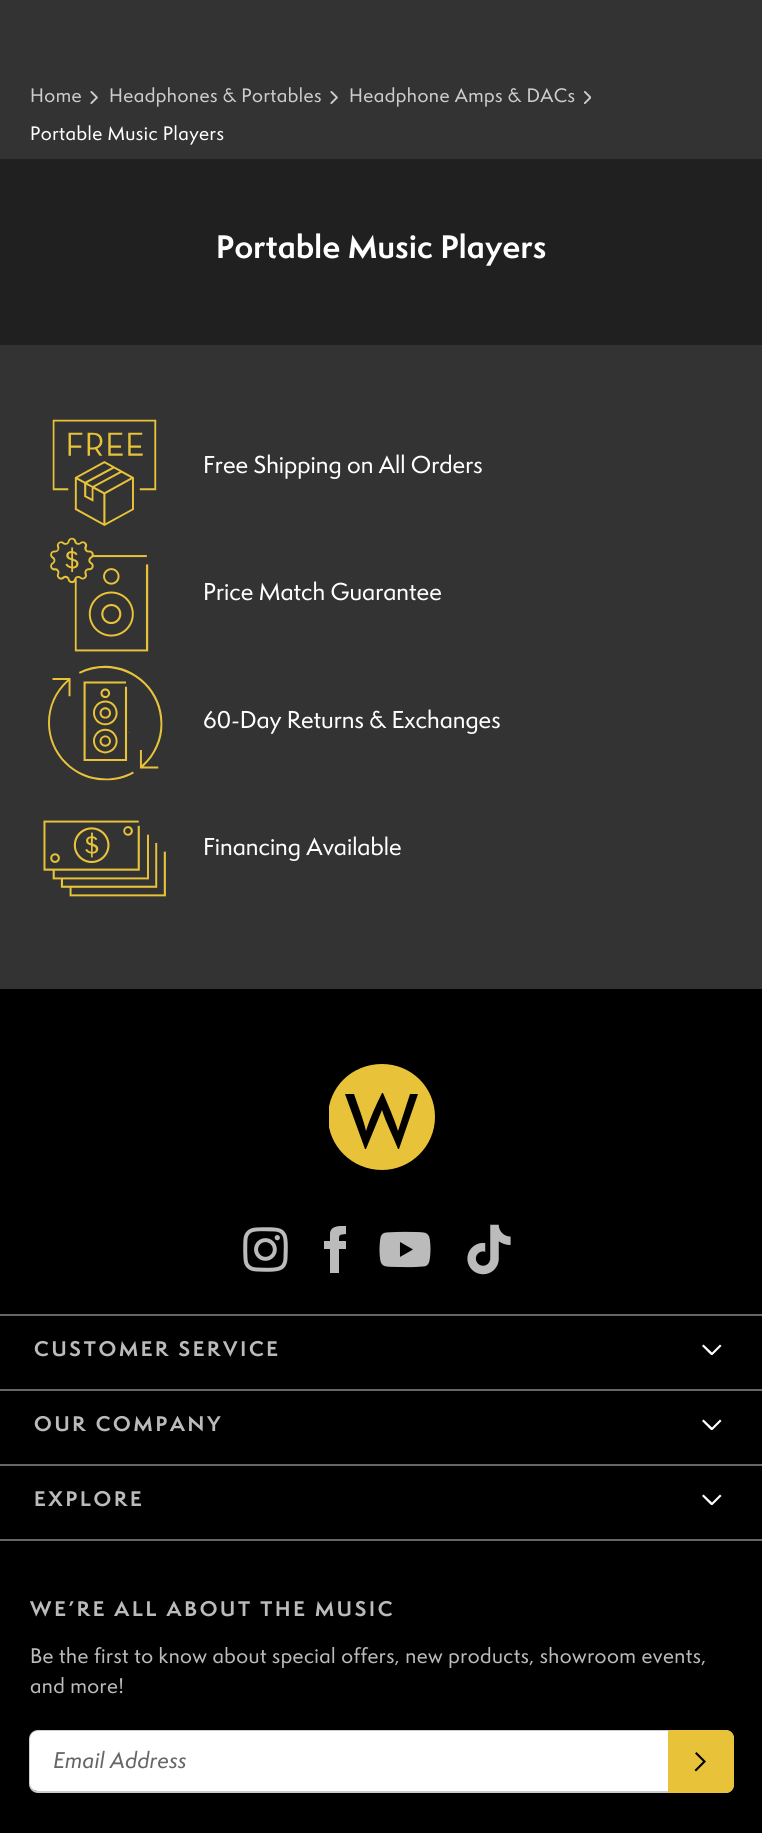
#include <cairo/cairo.h>
#include <math.h>
#include <stddef.h>

static cairo_t *cr;

static void use_color(int r, int g, int b) {
  cairo_set_source_rgb(cr, r / 255.0, g / 255.0, b / 255.0);
}

static void text(double x, double y, const char *s, const char *family, double size, int italic, int bold, int r, int g, int b) {
  cairo_select_font_face(cr, family, italic ? CAIRO_FONT_SLANT_ITALIC : CAIRO_FONT_SLANT_NORMAL,
    bold ? CAIRO_FONT_WEIGHT_BOLD : CAIRO_FONT_WEIGHT_NORMAL);
  cairo_set_font_size(cr, size);
  use_color(r, g, b);
  cairo_move_to(cr, x, y);
  cairo_show_text(cr, s);
}

static void spaced_text(double x, double y, const char *s, double letter, double word) {
  cairo_move_to(cr, x, y);
  while (*s) {
    char ch[5] = {0};
    int n = 0;
    do ch[n++] = *s++; while ((*s & 0xC0) == 0x80);
    cairo_show_text(cr, ch);
    cairo_rel_move_to(cr, letter + word * (*ch == ' '), 0);
  }
}

static void box(double x, double y, double w, double h, int r, int g, int b) {
  use_color(r, g, b);
  cairo_rectangle(cr, x, y, w, h);
  cairo_fill(cr);
}

static void round_rect(double x, double y, double w, double h, double r) {
  cairo_new_sub_path(cr);
  cairo_arc(cr, x + w - r, y + h - r, r, 0, M_PI / 2);
  cairo_arc(cr, x + r, y + h - r, r, M_PI / 2, M_PI);
  cairo_arc(cr, x + r, y + r, r, M_PI, 1.5 * M_PI);
  cairo_arc(cr, x + w - r, y + r, r, 1.5 * M_PI, 2 * M_PI);
  cairo_close_path(cr);
}

static void picture(const char *path, double x, double y, double w, double h) {
  cairo_surface_t *image = cairo_image_surface_create_from_png(path);
  cairo_save(cr);
  cairo_set_source_surface(cr, image, x, y);
  cairo_rectangle(cr, x, y, w, h);
  cairo_fill(cr);
  cairo_restore(cr);
  cairo_surface_destroy(image);
}

static void draw(void) {
  use_color(51, 51, 51);
  cairo_paint(cr);
  picture("img_01.png", 90, 91, 8, 13);
  picture("img_01.png", 330, 91, 8, 13);
  picture("img_02.png", 583, 91, 8, 13);
  box(0, 159, 762, 186, 32, 32, 32);
  picture("img_03.png", 52, 419, 105, 107);
  picture("img_04.png", 50, 537, 99, 115);
  picture("img_05.png", 48, 665, 115, 116);
  picture("img_06.png", 43, 820, 123, 77);
  box(0, 989, 762, 844, 0, 0, 0);
  cairo_save(cr);
  cairo_rectangle(cr, 329, 1064, 106, 106);
  cairo_clip(cr);
  use_color(232, 195, 58);
  cairo_new_path(cr);
  cairo_move_to(cr, 382, 1064);
  cairo_curve_to(cr, 352, 1064, 328, 1087, 328, 1117);
  cairo_curve_to(cr, 328, 1146, 352, 1170, 382, 1170);
  cairo_curve_to(cr, 411, 1170, 435, 1146, 435, 1117);
  cairo_curve_to(cr, 435, 1087, 411, 1064, 382, 1064);
  cairo_close_path(cr);
  cairo_move_to(cr, 399, 1149);
  cairo_line_to(cr, 398, 1149);
  cairo_curve_to(cr, 393, 1136, 386, 1123, 382, 1110);
  cairo_line_to(cr, 366, 1149);
  cairo_line_to(cr, 365, 1149);
  cairo_line_to(cr, 345, 1094);
  cairo_line_to(cr, 354, 1094);
  cairo_curve_to(cr, 358, 1106, 363, 1118, 366, 1131);
  cairo_curve_to(cr, 370, 1118, 376, 1105, 382, 1093);
  cairo_line_to(cr, 383, 1093);
  cairo_curve_to(cr, 388, 1105, 394, 1118, 398, 1131);
  cairo_line_to(cr, 410, 1094);
  cairo_line_to(cr, 418, 1094);
  cairo_close_path(cr);
  cairo_fill(cr);
  cairo_restore(cr);
  picture("img_07.png", 243, 1227, 45, 45);
  use_color(187, 187, 187);
  cairo_new_path(cr);
  cairo_move_to(cr, 346, 1249);
  cairo_line_to(cr, 339, 1249);
  cairo_line_to(cr, 339, 1273);
  cairo_line_to(cr, 330, 1273);
  cairo_line_to(cr, 330, 1249);
  cairo_line_to(cr, 324, 1249);
  cairo_line_to(cr, 324, 1241);
  cairo_line_to(cr, 330, 1241);
  cairo_line_to(cr, 330, 1233);
  cairo_curve_to(cr, 331, 1225, 341, 1226, 346, 1226);
  cairo_line_to(cr, 346, 1234);
  cairo_curve_to(cr, 339, 1235, 339, 1234, 339, 1241);
  cairo_line_to(cr, 346, 1241);
  cairo_close_path(cr);
  cairo_fill(cr);
  picture("img_08.png", 379, 1231, 52, 37);
  picture("img_09.png", 467, 1224, 44, 51);
  box(0, 1314, 762, 2, 102, 102, 102);
  use_color(255, 255, 255);
  cairo_new_path(cr);
  cairo_move_to(cr, 702, 1346);
  cairo_line_to(cr, 703.5, 1344.5);
  cairo_line_to(cr, 712, 1352.5);
  cairo_line_to(cr, 720, 1344.5);
  cairo_line_to(cr, 721.5, 1346);
  cairo_line_to(cr, 712.5, 1355);
  cairo_line_to(cr, 711, 1355);
  cairo_close_path(cr);
  cairo_fill(cr);
  box(0, 1389, 762, 2, 102, 102, 102);
  use_color(255, 255, 255);
  cairo_new_path(cr);
  cairo_move_to(cr, 702, 1421);
  cairo_line_to(cr, 703.5, 1419.5);
  cairo_line_to(cr, 712, 1427.5);
  cairo_line_to(cr, 720, 1419.5);
  cairo_line_to(cr, 721.5, 1421);
  cairo_line_to(cr, 712.5, 1430);
  cairo_line_to(cr, 711, 1430);
  cairo_close_path(cr);
  cairo_fill(cr);
  box(0, 1464, 762, 2, 102, 102, 102);
  box(0, 1539, 762, 2, 102, 102, 102);
  use_color(255, 255, 255);
  cairo_new_path(cr);
  cairo_move_to(cr, 702, 1496);
  cairo_line_to(cr, 703.5, 1494.5);
  cairo_line_to(cr, 712, 1502.5);
  cairo_line_to(cr, 720, 1494.5);
  cairo_line_to(cr, 721.5, 1496);
  cairo_line_to(cr, 712.5, 1505);
  cairo_line_to(cr, 711, 1505);
  cairo_close_path(cr);
  cairo_fill(cr);
  round_rect(30, 1731, 703, 61, 8);
  use_color(204, 204, 204);
  cairo_stroke(cr);
  use_color(255, 255, 255);
  round_rect(30, 1731, 702, 60, 8);
  cairo_fill(cr);
  use_color(232, 195, 58);
  cairo_new_path(cr);
  cairo_move_to(cr, 668, 1730);
  cairo_line_to(cr, 726, 1730);
  cairo_curve_to(cr, 730.5, 1730, 734, 1733.5, 734, 1738);
  cairo_line_to(cr, 734, 1785);
  cairo_curve_to(cr, 734, 1789.5, 730.5, 1793, 726, 1793);
  cairo_line_to(cr, 668, 1793);
  cairo_close_path(cr);
  cairo_fill(cr);
  use_color(0, 0, 0);
  cairo_new_path(cr);
  cairo_move_to(cr, 696, 1771.5);
  cairo_line_to(cr, 694.5, 1770);
  cairo_line_to(cr, 703, 1761.5);
  cairo_line_to(cr, 695, 1753.5);
  cairo_line_to(cr, 696.5, 1752);
  cairo_line_to(cr, 706, 1761.5);
  cairo_close_path(cr);
  cairo_fill(cr);
  cairo_select_font_face(cr, "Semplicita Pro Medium", CAIRO_FONT_SLANT_NORMAL, CAIRO_FONT_WEIGHT_NORMAL);
  cairo_set_font_size(cr, 18);
  use_color(205, 205, 205);
  spaced_text(30, 102, "Home", 0.45, 0);
  spaced_text(109, 102, "Headphones & Portables", 0.45, 0);
  spaced_text(349, 102, "Headphone Amps & DACs", 0.45, 0);
  use_color(255, 255, 255);
  spaced_text(30, 140, "Portable Music Players", 0.45, 0);
  cairo_select_font_face(cr, "Semplicita Pro", CAIRO_FONT_SLANT_NORMAL, CAIRO_FONT_WEIGHT_BOLD);
  cairo_set_font_size(cr, 30);
  spaced_text(216, 258, "Portable Music Players", 0.3, 0);
  text(203, 473, "Free Shipping on All Orders", "Semplicita Pro Medium", 22.5, 0, 0, 255, 255, 255);
  text(203, 600, "Price Match Guarantee", "Semplicita Pro Medium", 22.5, 0, 0, 255, 255, 255);
  text(203, 728, "60-Day Returns & Exchanges", "Semplicita Pro Medium", 22.5, 0, 0, 255, 255, 255);
  text(203, 855, "Financing Available", "Semplicita Pro Medium", 22.5, 0, 0, 255, 255, 255);
  cairo_select_font_face(cr, "Semplicita Pro", CAIRO_FONT_SLANT_NORMAL, CAIRO_FONT_WEIGHT_BOLD);
  cairo_set_font_size(cr, 19.5);
  use_color(187, 187, 187);
  spaced_text(34, 1356, "CUSTOMER SERVICE", 2.75, 0);
  spaced_text(34, 1431, "OUR COMPANY", 2.75, 0);
  spaced_text(34, 1506, "EXPLORE", 2.75, 0);
  spaced_text(30, 1616, "WE’RE ALL ABOUT THE MUSIC", 2.75, 0);
  cairo_select_font_face(cr, "Semplicita Pro Medium", CAIRO_FONT_SLANT_NORMAL, CAIRO_FONT_WEIGHT_NORMAL);
  spaced_text(30, 1663, "Be the first to know about special offers, new products, showroom events,", 0.45, 0);
  spaced_text(30, 1693, "and more!", 0.45, 0);
  cairo_select_font_face(cr, "Semplicita Pro Medium", CAIRO_FONT_SLANT_ITALIC, CAIRO_FONT_WEIGHT_NORMAL);
  cairo_set_font_size(cr, 21);
  use_color(102, 102, 102);
  spaced_text(53, 1768, "Email Address", 0.25, 0);
}

int main(void) {
  cairo_surface_t *surface = cairo_image_surface_create(CAIRO_FORMAT_RGB24, 762, 1833);
  cr = cairo_create(surface);
  cairo_font_options_t *options = cairo_font_options_create();
  cairo_font_options_set_hint_metrics(options, CAIRO_HINT_METRICS_OFF);
  cairo_font_options_set_hint_style(options, CAIRO_HINT_STYLE_NONE);
  cairo_set_font_options(cr, options);
  cairo_set_miter_limit(cr, 4);
  draw();
  cairo_surface_write_to_png(surface, "out.png");
  cairo_font_options_destroy(options);
  cairo_destroy(cr);
  cairo_surface_destroy(surface);
  return 0;
}
